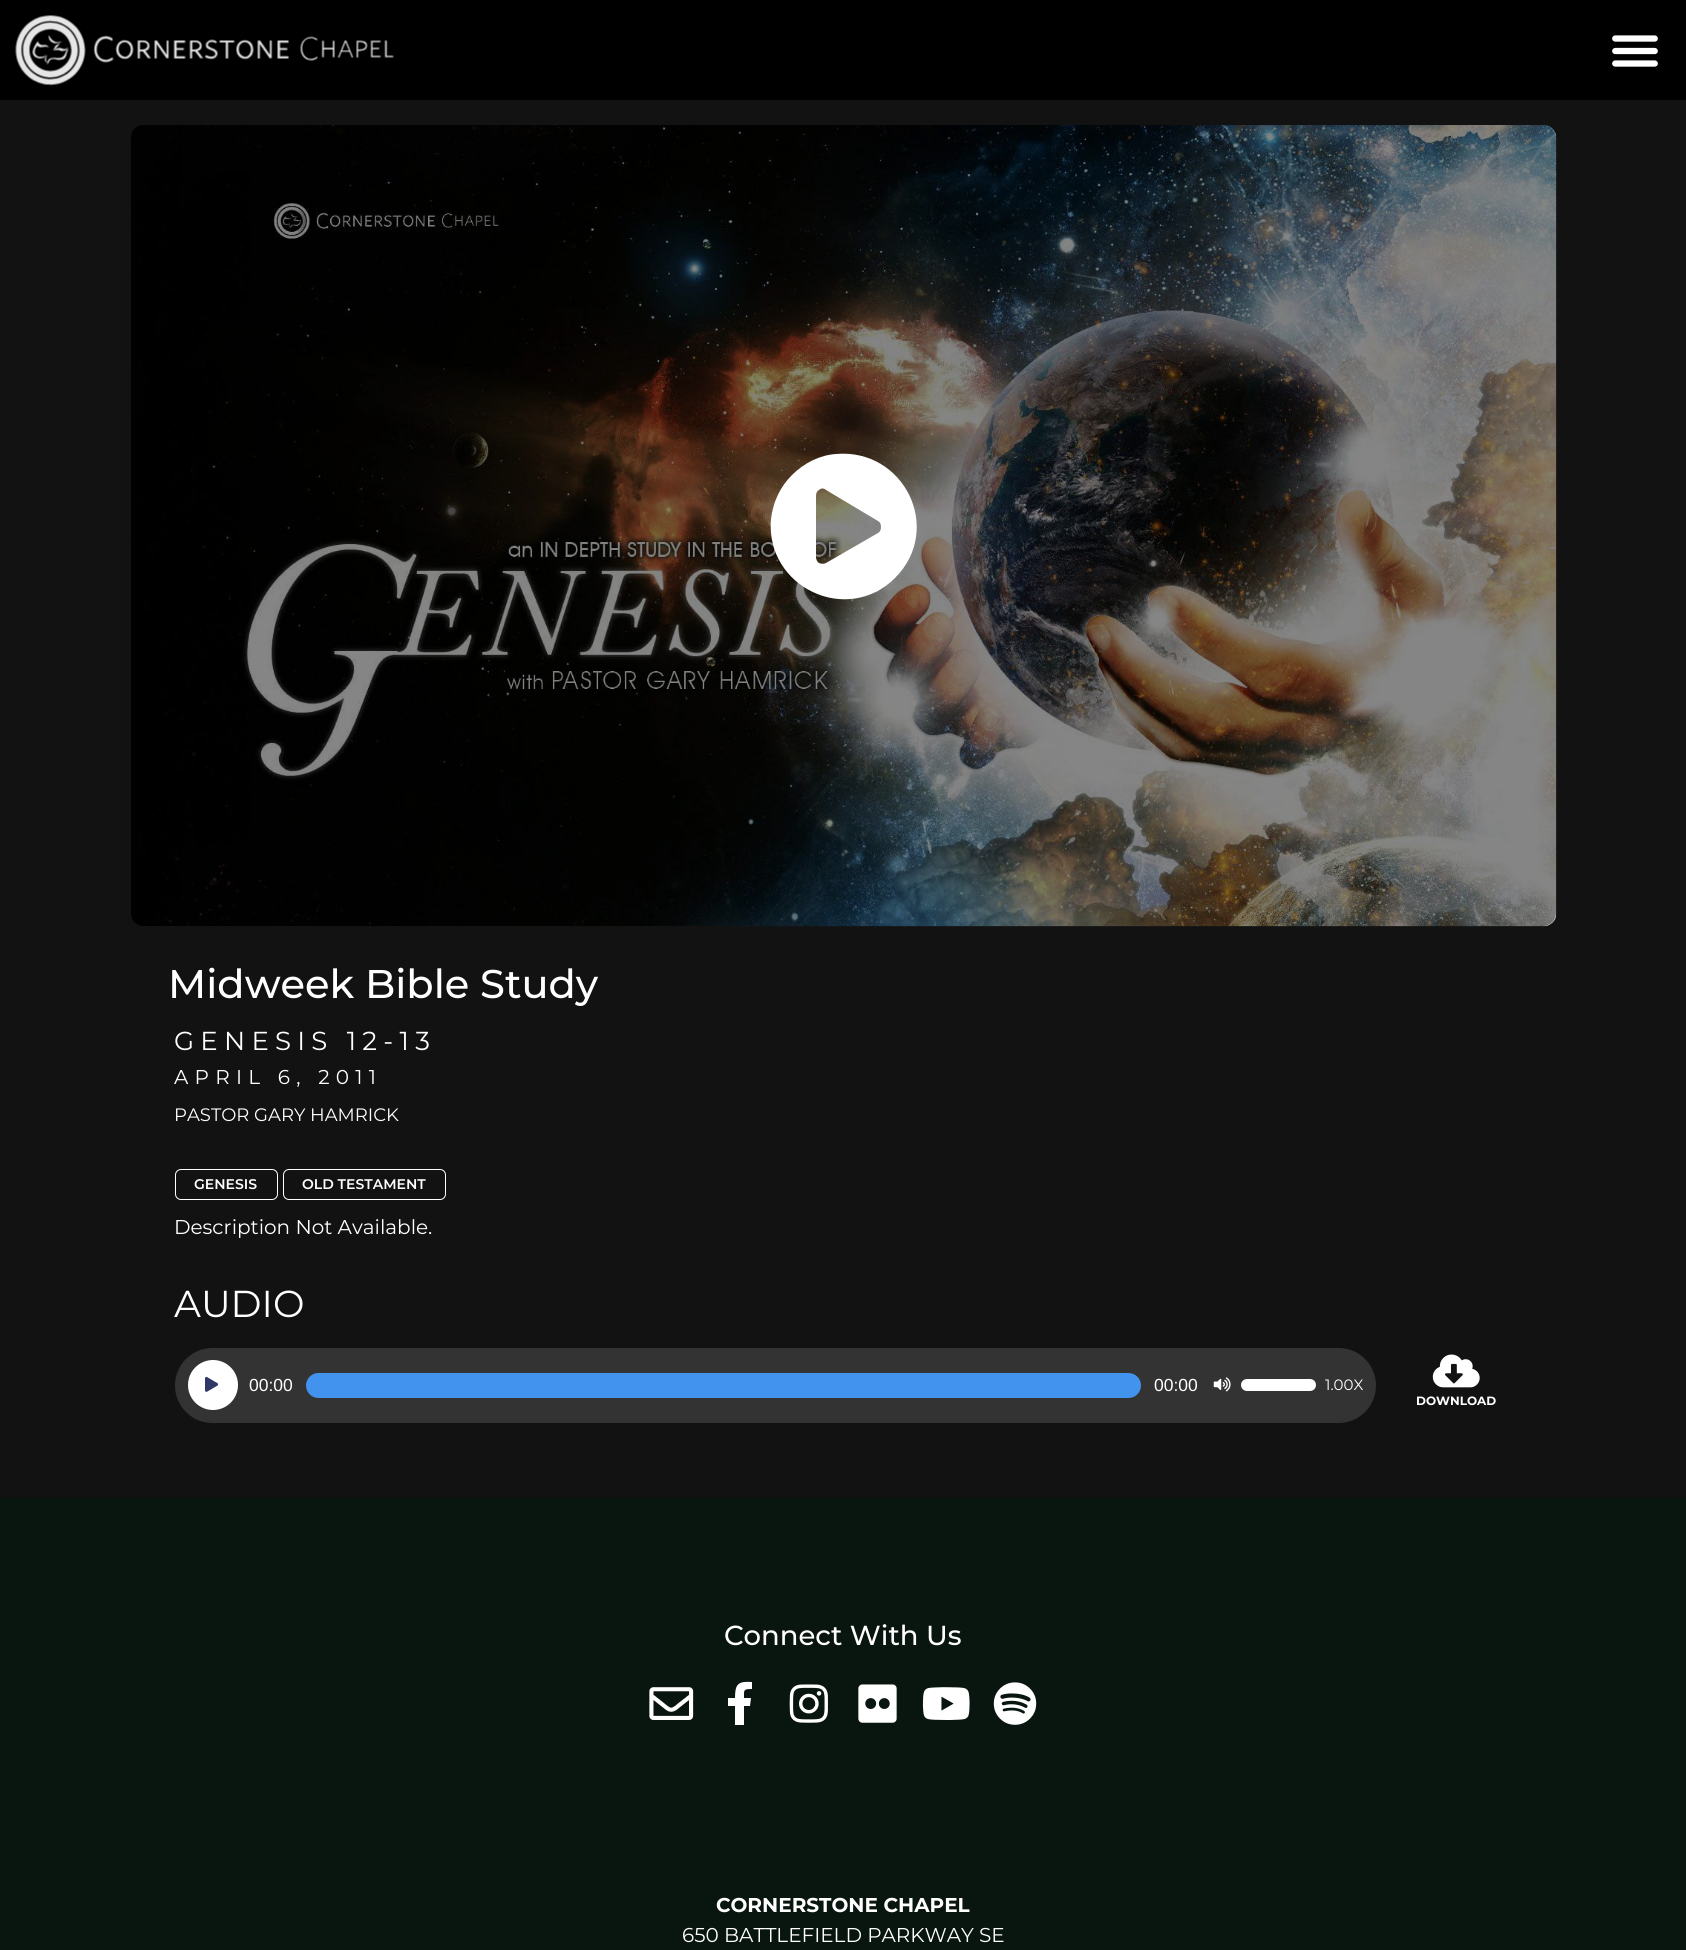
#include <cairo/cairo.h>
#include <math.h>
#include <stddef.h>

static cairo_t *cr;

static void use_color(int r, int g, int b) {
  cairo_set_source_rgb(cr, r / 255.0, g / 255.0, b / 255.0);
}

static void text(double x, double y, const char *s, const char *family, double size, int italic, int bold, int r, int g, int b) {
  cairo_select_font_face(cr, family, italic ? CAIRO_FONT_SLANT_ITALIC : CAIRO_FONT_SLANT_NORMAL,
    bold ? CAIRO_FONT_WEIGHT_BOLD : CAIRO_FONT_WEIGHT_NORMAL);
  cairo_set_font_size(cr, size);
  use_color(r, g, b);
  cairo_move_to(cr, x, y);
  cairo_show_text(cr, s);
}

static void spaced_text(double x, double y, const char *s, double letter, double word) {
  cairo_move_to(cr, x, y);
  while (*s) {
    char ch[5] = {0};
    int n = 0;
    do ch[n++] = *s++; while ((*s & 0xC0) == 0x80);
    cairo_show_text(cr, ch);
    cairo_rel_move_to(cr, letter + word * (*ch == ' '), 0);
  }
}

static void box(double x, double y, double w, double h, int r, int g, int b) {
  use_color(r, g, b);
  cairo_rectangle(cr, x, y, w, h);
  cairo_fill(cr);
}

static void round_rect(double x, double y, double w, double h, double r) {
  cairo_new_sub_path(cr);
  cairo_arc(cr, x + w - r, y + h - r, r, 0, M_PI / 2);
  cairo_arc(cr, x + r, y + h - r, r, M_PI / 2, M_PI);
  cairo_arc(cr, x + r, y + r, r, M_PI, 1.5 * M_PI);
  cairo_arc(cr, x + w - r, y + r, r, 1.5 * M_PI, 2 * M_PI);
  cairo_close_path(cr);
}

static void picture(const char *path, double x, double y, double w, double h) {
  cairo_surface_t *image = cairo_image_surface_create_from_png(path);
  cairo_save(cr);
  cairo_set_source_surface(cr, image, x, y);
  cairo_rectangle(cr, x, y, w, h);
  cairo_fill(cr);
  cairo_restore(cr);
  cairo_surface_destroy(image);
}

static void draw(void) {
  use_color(18, 18, 18);
  cairo_paint(cr);
  box(0, 0, 1686, 100, 0, 0, 0);
  picture("img_01.png", 15, 15, 71, 71);
  picture("img_02.png", 93, 35, 301, 28);
  picture("img_03.png", 1612, 35, 46, 32);
  round_rect(131, 125, 1425, 801, 13);
  cairo_fill(cr);
  picture("img_04.png", 132, 125, 1425, 802);
  cairo_set_source_rgba(cr, 0, 0, 0, 0.48);
  round_rect(131, 125, 1425, 801, 13);
  cairo_fill(cr);
  use_color(255, 255, 255);
  cairo_new_path(cr);
  cairo_move_to(cr, 792, 475);
  cairo_curve_to(cr, 804, 463, 820, 455, 836, 454);
  cairo_curve_to(cr, 904, 448, 944, 529, 895, 578);
  cairo_curve_to(cr, 847, 626, 765, 587, 771, 519);
  cairo_curve_to(cr, 773, 502, 780, 487, 792, 475);
  cairo_close_path(cr);
  cairo_move_to(cr, 878, 533);
  cairo_curve_to(cr, 880, 532, 881, 530, 881, 527);
  cairo_curve_to(cr, 881, 524, 880, 522, 878, 521);
  cairo_line_to(cr, 826, 490);
  cairo_curve_to(cr, 824, 488, 821, 488, 819, 490);
  cairo_curve_to(cr, 817, 491, 816, 493, 816, 496);
  cairo_line_to(cr, 816, 557);
  cairo_curve_to(cr, 816, 559, 817, 562, 819, 563);
  cairo_curve_to(cr, 821, 564, 824, 564, 826, 563);
  cairo_close_path(cr);
  cairo_fill(cr);
  round_rect(175.5, 1169.5, 102, 30, 5.5);
  cairo_set_line_width(cr, 1);
  cairo_stroke(cr);
  round_rect(283.5, 1169.5, 162, 30, 5.5);
  cairo_stroke(cr);
  use_color(51, 51, 51);
  round_rect(175, 1348, 1201, 75, 37.5);
  cairo_fill(cr);
  use_color(255, 255, 255);
  cairo_arc(cr, 213, 1385, 25, 0, 2 * M_PI);
  cairo_fill(cr);
  picture("img_05.png", 205, 1376, 14, 16);
  use_color(66, 147, 238);
  round_rect(306, 1373, 835, 25, 12.5);
  cairo_fill(cr);
  picture("img_06.png", 1213, 1377, 18, 15);
  use_color(255, 255, 255);
  round_rect(1241, 1379, 75, 12, 6);
  cairo_fill(cr);
  picture("img_07.png", 1432, 1354, 48, 34);
  box(0, 1498, 1686, 452, 9, 22, 15);
  picture("img_08.png", 649, 1687, 45, 33);
  use_color(255, 255, 255);
  cairo_new_path(cr);
  cairo_move_to(cr, 750, 1706);
  cairo_line_to(cr, 744, 1706);
  cairo_line_to(cr, 744, 1725);
  cairo_line_to(cr, 735, 1725);
  cairo_line_to(cr, 735, 1706);
  cairo_line_to(cr, 728, 1706);
  cairo_line_to(cr, 728, 1698);
  cairo_line_to(cr, 735, 1698);
  cairo_curve_to(cr, 735, 1684, 738, 1681, 752, 1682);
  cairo_line_to(cr, 752, 1689);
  cairo_curve_to(cr, 743, 1689, 744, 1690, 744, 1698);
  cairo_line_to(cr, 751, 1698);
  cairo_close_path(cr);
  cairo_fill(cr);
  picture("img_09.png", 789, 1684, 39, 39);
  picture("img_10.png", 858, 1684, 39, 39);
  picture("img_11.png", 922, 1687, 48, 33);
  picture("img_12.png", 993, 1682, 44, 43);
  text(168, 998, "Midweek Bible Study", "Montserrat Medium", 40, 0, 0, 255, 255, 255);
  cairo_select_font_face(cr, "Montserrat", CAIRO_FONT_SLANT_NORMAL, CAIRO_FONT_WEIGHT_NORMAL);
  cairo_set_font_size(cr, 26);
  spaced_text(174, 1050, "GENESIS 12-13", 6.25, 0);
  cairo_set_font_size(cr, 20);
  spaced_text(174, 1084, "APRIL 6, 2011", 6.25, 0);
  text(174, 1121, "PASTOR GARY HAMRICK", "Montserrat", 18, 0, 0, 255, 255, 255);
  text(194, 1189, "GENESIS", "Montserrat SemiBold", 14, 0, 0, 255, 255, 255);
  text(302, 1189, "OLD TESTAMENT", "Montserrat SemiBold", 14, 0, 0, 255, 255, 255);
  text(174, 1234, "Description Not Available.", "Montserrat", 20, 0, 0, 255, 255, 255);
  text(174, 1317, "AUDIO", "Montserrat", 37.5, 0, 0, 255, 255, 255);
  text(249, 1391, "00:00", "Liberation Sans", 17.5, 0, 0, 255, 255, 255);
  text(1154, 1391, "00:00", "Liberation Sans", 17.5, 0, 0, 255, 255, 255);
  text(1325, 1390, "1.00X", "Montserrat", 15, 0, 0, 255, 255, 255);
  text(1416, 1405, "DOWNLOAD", "Montserrat", 12, 0, 1, 255, 255, 255);
  text(724, 1645, "Connect With Us", "Montserrat Medium", 27.5, 0, 0, 255, 255, 255);
  text(716, 1912, "CORNERSTONE CHAPEL", "Montserrat", 20, 0, 1, 255, 255, 255);
  text(682, 1942, "650 BATTLEFIELD PARKWAY SE", "Montserrat", 20, 0, 0, 255, 255, 255);
}

int main(void) {
  cairo_surface_t *surface = cairo_image_surface_create(CAIRO_FORMAT_RGB24, 1686, 1950);
  cr = cairo_create(surface);
  cairo_font_options_t *options = cairo_font_options_create();
  cairo_font_options_set_hint_metrics(options, CAIRO_HINT_METRICS_OFF);
  cairo_font_options_set_hint_style(options, CAIRO_HINT_STYLE_NONE);
  cairo_set_font_options(cr, options);
  cairo_set_miter_limit(cr, 4);
  draw();
  cairo_surface_write_to_png(surface, "out.png");
  cairo_font_options_destroy(options);
  cairo_destroy(cr);
  cairo_surface_destroy(surface);
  return 0;
}
